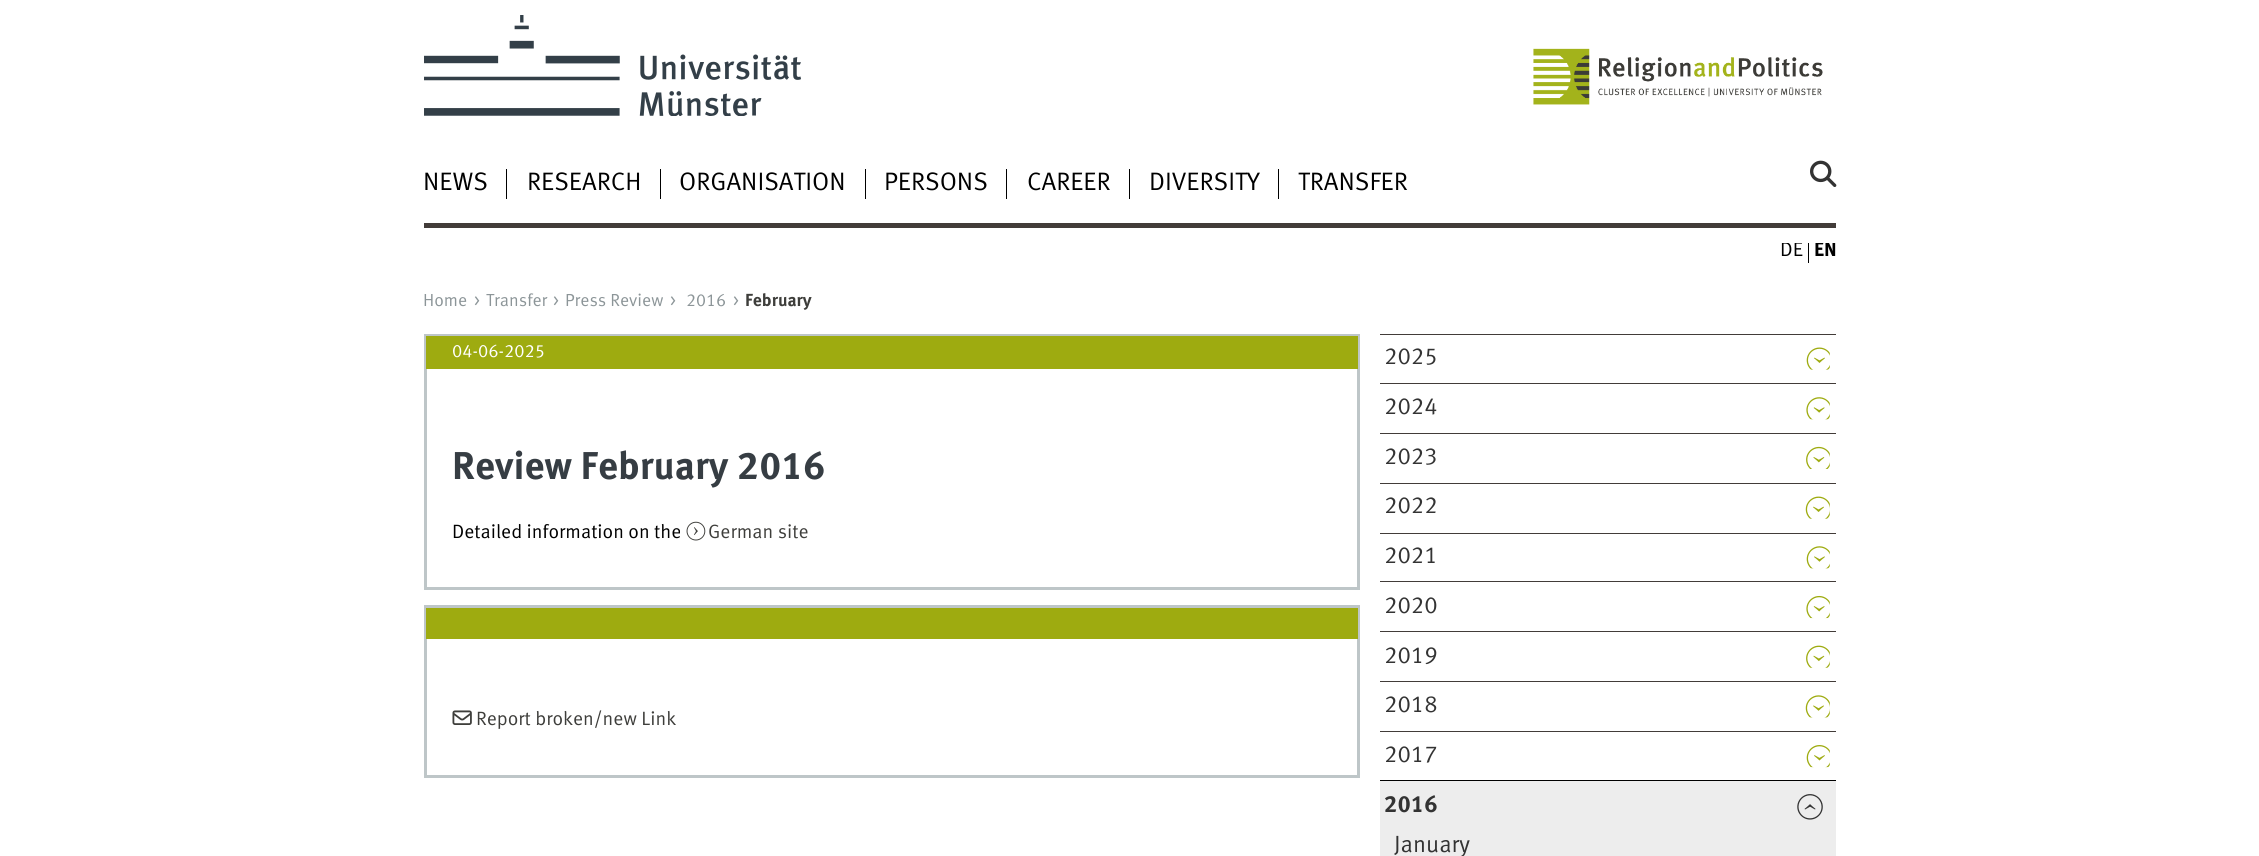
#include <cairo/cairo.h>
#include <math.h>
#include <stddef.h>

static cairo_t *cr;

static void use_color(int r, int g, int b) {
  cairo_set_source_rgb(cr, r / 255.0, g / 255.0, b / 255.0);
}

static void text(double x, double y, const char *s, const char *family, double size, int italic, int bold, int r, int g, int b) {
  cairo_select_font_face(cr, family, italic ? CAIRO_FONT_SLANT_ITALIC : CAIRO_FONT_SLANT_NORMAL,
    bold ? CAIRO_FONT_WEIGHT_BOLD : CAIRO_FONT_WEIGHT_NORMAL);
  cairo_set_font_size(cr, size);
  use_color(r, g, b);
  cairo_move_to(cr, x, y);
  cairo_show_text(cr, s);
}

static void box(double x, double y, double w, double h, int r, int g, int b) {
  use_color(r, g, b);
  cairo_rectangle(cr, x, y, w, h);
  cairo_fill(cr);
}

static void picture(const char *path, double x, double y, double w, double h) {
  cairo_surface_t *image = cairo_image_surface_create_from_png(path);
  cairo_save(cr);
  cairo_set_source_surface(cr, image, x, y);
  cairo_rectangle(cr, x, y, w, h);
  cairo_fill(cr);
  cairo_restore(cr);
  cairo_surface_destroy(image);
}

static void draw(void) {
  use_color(255, 255, 255);
  cairo_paint(cr);
  picture("img_01.png", 424, 15, 377, 101);
  picture("img_02.png", 1533, 48, 290, 57);
  box(424, 223, 1412, 5, 66, 60, 57);
  box(506, 169, 1, 30, 0, 0, 0);
  box(660, 169, 1, 30, 0, 0, 0);
  box(865, 169, 1, 30, 0, 0, 0);
  box(1006, 169, 1, 30, 0, 0, 0);
  box(1129, 169, 1, 30, 0, 0, 0);
  box(1278, 169, 1, 30, 0, 0, 0);
  picture("img_03.png", 1810, 160, 27, 27);
  box(1808, 243, 1, 20, 0, 0, 0);
  cairo_rectangle(cr, 425.5, 335.5, 933, 253);
  use_color(190, 198, 200);
  cairo_set_line_width(cr, 3);
  cairo_stroke(cr);
  box(426, 336, 932, 33, 158, 171, 16);
  picture("img_04.png", 686, 521, 20, 20);
  cairo_rectangle(cr, 425.5, 606.5, 933, 170);
  use_color(190, 198, 200);
  cairo_stroke(cr);
  box(426, 608, 932, 31, 158, 171, 16);
  picture("img_05.png", 452, 710, 20, 15);
  box(1380, 334, 456, 1, 66, 60, 57);
  picture("img_06.png", 1806, 347, 24, 23);
  box(1380, 383, 456, 1, 66, 60, 57);
  picture("img_07.png", 1806, 397, 24, 23);
  box(1380, 433, 456, 1, 66, 60, 57);
  picture("img_08.png", 1806, 446, 24, 23);
  box(1380, 483, 456, 1, 66, 60, 57);
  picture("img_09.png", 1805, 496, 25, 23);
  box(1380, 533, 456, 1, 66, 60, 57);
  picture("img_10.png", 1806, 546, 24, 23);
  box(1380, 581, 456, 1, 66, 60, 57);
  picture("img_11.png", 1806, 595, 24, 24);
  box(1380, 631, 456, 1, 66, 60, 57);
  picture("img_12.png", 1806, 645, 24, 23);
  box(1380, 681, 456, 1, 66, 60, 57);
  picture("img_13.png", 1805, 695, 25, 23);
  box(1380, 731, 456, 1, 66, 60, 57);
  picture("img_14.png", 1806, 745, 24, 23);
  box(1380, 781, 456, 75, 237, 237, 237);
  box(1380, 780, 456, 1, 0, 0, 0);
  picture("img_15.png", 1797, 794, 26, 26);
  text(423, 190, "NEWS", "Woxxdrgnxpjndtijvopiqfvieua", 25.25, 0, 0, 0, 0, 0);
  text(527, 190, "RESEARCH", "Woxxdrgnxpjndtijvopiqfvieua", 25.25, 0, 0, 0, 0, 0);
  text(679, 190, "ORGANISATION", "Woxxdrgnxpjndtijvopiqfvieua", 25.25, 0, 0, 0, 0, 0);
  text(884, 190, "PERSONS", "Woxxdrgnxpjndtijvopiqfvieua", 25.25, 0, 0, 0, 0, 0);
  text(1027, 190, "CAREER", "Woxxdrgnxpjndtijvopiqfvieua", 25.25, 0, 0, 0, 0, 0);
  text(1149, 190, "DIVERSITY", "Woxxdrgnxpjndtijvopiqfvieua", 25.25, 0, 0, 0, 0, 0);
  text(1298, 190, "TRANSFER", "Woxxdrgnxpjndtijvopiqfvieua", 25.25, 0, 0, 0, 0, 0);
  cairo_save(cr);
  cairo_rectangle(cr, 1775, 243, 61, 20);
  cairo_clip(cr);
  text(1780, 256, "DE", "Woxxdrgnxpjndtijvopiqfvieua", 20, 0, 0, 0, 0, 0);
  text(1814, 256, "EN", "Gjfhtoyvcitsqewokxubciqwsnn", 20, 0, 1, 0, 0, 0);
  cairo_restore(cr);
  text(423, 306, "Home", "Woxxdrgnxpjndtijvopiqfvieua", 17.5, 0, 0, 140, 149, 152);
  text(474, 306, ">", "Woxxdrgnxpjndtijvopiqfvieua", 17.5, 0, 0, 140, 149, 152);
  text(486, 306, "Transfer", "Woxxdrgnxpjndtijvopiqfvieua", 17.5, 0, 0, 140, 149, 152);
  text(553, 306, ">", "Woxxdrgnxpjndtijvopiqfvieua", 17.5, 0, 0, 140, 149, 152);
  text(565, 306, "Press Review", "Woxxdrgnxpjndtijvopiqfvieua", 17.5, 0, 0, 140, 149, 152);
  text(670, 306, ">", "Woxxdrgnxpjndtijvopiqfvieua", 17.5, 0, 0, 140, 149, 152);
  text(686, 306, "2016", "Woxxdrgnxpjndtijvopiqfvieua", 17.5, 0, 0, 140, 149, 152);
  text(733, 306, ">", "Woxxdrgnxpjndtijvopiqfvieua", 17.5, 0, 0, 140, 149, 152);
  text(745, 306, "February", "Gjfhtoyvcitsqewokxubciqwsnn", 17.5, 0, 1, 62, 62, 59);
  text(452, 357, "04-06-2025", "Woxxdrgnxpjndtijvopiqfvieua", 18, 0, 0, 255, 255, 255);
  text(452, 479, "Review February 2016", "Gjfhtoyvcitsqewokxubciqwsnn", 38.75, 0, 1, 54, 61, 67);
  text(452, 538, "Detailed information on the", "Woxxdrgnxpjndtijvopiqfvieua", 19.3, 0, 0, 0, 0, 0);
  text(708, 538, "German site", "Woxxdrgnxpjndtijvopiqfvieua", 19.3, 0, 0, 62, 62, 59);
  text(476, 725, "Report broken/new Link", "Woxxdrgnxpjndtijvopiqfvieua", 19.3, 0, 0, 62, 62, 59);
  text(1384, 364, "2025", "Woxxdrgnxpjndtijvopiqfvieua", 23.5, 0, 0, 51, 51, 51);
  text(1384, 414, "2024", "Woxxdrgnxpjndtijvopiqfvieua", 23.5, 0, 0, 51, 51, 51);
  text(1384, 464, "2023", "Woxxdrgnxpjndtijvopiqfvieua", 23.5, 0, 0, 51, 51, 51);
  text(1384, 513, "2022", "Woxxdrgnxpjndtijvopiqfvieua", 23.5, 0, 0, 51, 51, 51);
  text(1384, 563, "2021", "Woxxdrgnxpjndtijvopiqfvieua", 23.5, 0, 0, 51, 51, 51);
  text(1384, 613, "2020", "Woxxdrgnxpjndtijvopiqfvieua", 23.5, 0, 0, 51, 51, 51);
  text(1384, 663, "2019", "Woxxdrgnxpjndtijvopiqfvieua", 23.5, 0, 0, 51, 51, 51);
  text(1384, 712, "2018", "Woxxdrgnxpjndtijvopiqfvieua", 23.5, 0, 0, 51, 51, 51);
  text(1384, 762, "2017", "Woxxdrgnxpjndtijvopiqfvieua", 23.5, 0, 0, 51, 51, 51);
  text(1384, 812, "2016", "Gjfhtoyvcitsqewokxubciqwsnn", 23.5, 0, 1, 51, 51, 51);
  text(1394, 852, "January", "Woxxdrgnxpjndtijvopiqfvieua", 23.5, 0, 0, 51, 51, 51);
}

int main(void) {
  cairo_surface_t *surface = cairo_image_surface_create(CAIRO_FORMAT_RGB24, 2259, 856);
  cr = cairo_create(surface);
  cairo_font_options_t *options = cairo_font_options_create();
  cairo_font_options_set_hint_metrics(options, CAIRO_HINT_METRICS_OFF);
  cairo_font_options_set_hint_style(options, CAIRO_HINT_STYLE_NONE);
  cairo_set_font_options(cr, options);
  cairo_set_miter_limit(cr, 4);
  draw();
  cairo_surface_write_to_png(surface, "out.png");
  cairo_font_options_destroy(options);
  cairo_destroy(cr);
  cairo_surface_destroy(surface);
  return 0;
}
